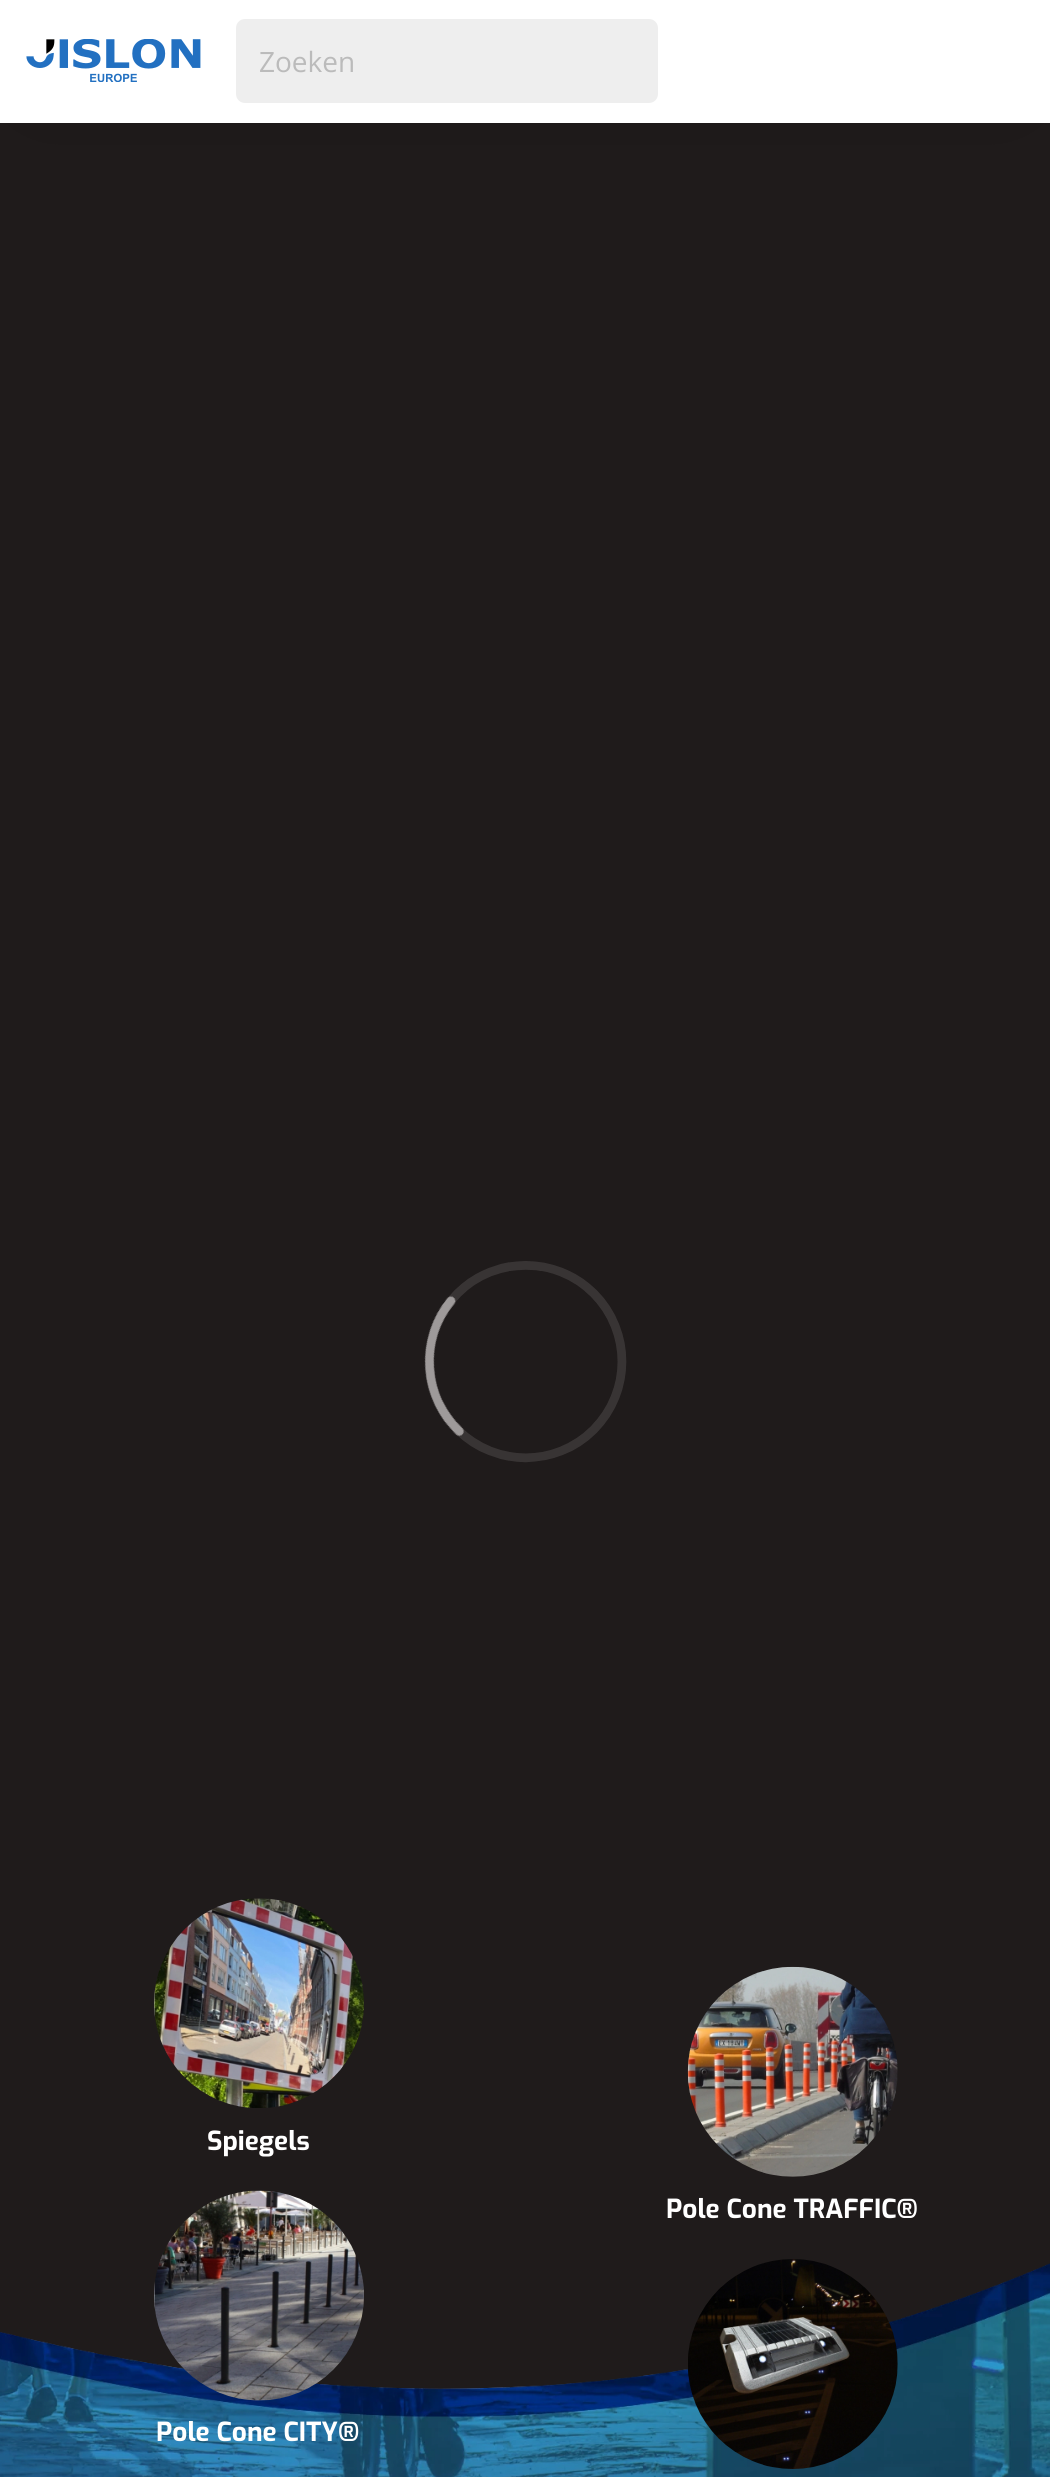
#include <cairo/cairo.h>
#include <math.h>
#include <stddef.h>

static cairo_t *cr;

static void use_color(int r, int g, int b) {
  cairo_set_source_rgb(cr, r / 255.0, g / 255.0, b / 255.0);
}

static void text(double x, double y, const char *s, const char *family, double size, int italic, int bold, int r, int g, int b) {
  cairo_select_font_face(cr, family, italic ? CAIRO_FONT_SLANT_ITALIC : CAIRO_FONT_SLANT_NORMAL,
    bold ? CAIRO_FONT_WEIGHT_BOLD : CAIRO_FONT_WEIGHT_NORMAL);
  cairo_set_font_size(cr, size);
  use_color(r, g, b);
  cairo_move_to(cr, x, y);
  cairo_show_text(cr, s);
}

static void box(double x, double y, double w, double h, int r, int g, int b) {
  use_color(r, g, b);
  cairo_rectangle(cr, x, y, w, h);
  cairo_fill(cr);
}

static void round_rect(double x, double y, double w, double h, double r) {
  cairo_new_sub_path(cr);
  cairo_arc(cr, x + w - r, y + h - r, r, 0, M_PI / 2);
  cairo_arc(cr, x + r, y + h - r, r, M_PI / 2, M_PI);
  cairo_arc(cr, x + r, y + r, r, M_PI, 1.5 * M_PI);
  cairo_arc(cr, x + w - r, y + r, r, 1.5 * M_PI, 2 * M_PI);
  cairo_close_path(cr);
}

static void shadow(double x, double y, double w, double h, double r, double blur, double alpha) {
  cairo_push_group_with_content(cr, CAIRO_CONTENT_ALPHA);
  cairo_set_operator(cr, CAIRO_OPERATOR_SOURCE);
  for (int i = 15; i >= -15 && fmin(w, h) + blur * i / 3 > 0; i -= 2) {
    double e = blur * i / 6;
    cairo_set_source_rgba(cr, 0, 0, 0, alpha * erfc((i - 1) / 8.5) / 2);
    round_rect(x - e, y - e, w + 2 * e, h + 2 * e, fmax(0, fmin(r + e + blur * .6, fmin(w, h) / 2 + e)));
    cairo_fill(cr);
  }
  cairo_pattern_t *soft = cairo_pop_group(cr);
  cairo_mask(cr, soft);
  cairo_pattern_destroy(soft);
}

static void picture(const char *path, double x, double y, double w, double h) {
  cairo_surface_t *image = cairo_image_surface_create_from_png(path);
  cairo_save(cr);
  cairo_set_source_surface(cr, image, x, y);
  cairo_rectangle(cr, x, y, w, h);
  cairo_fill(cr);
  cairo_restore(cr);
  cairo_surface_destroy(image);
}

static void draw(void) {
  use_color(255, 255, 255);
  cairo_paint(cr);
  picture("img_02.png", 0, 123, 1050, 2266);
  use_color(0, 0, 0);
  shadow(44, 44, 962, 35, 0, 44, 0.25);
  box(0, 0, 1050, 123, 255, 255, 255);
  picture("img_01.png", 26, 39, 175, 43);
  use_color(238, 238, 238);
  round_rect(236, 19, 422, 84, 9);
  cairo_fill(cr);
  picture("img_03.png", 0, 2263, 1050, 214);
  picture("img_04.png", 154, 1898, 210, 210);
  picture("img_05.png", 687, 1966, 211, 211);
  picture("img_06.png", 154, 2190, 210, 211);
  picture("img_07.png", 688, 2259, 210, 210);
  text(259, 72, "Zoeken", "Open Sans", 28, 0, 0, 187, 187, 187);
  text(207, 2150, "Spiegels", "Exo", 26.25, 0, 1, 255, 255, 255);
  text(666, 2218, "Pole Cone TRAFFIC®", "Exo", 26.25, 0, 1, 255, 255, 255);
  text(156, 2441, "Pole Cone CITY®", "Exo", 26.25, 0, 1, 255, 255, 255);
}

int main(void) {
  cairo_surface_t *surface = cairo_image_surface_create(CAIRO_FORMAT_RGB24, 1050, 2477);
  cr = cairo_create(surface);
  cairo_font_options_t *options = cairo_font_options_create();
  cairo_font_options_set_hint_metrics(options, CAIRO_HINT_METRICS_OFF);
  cairo_font_options_set_hint_style(options, CAIRO_HINT_STYLE_NONE);
  cairo_set_font_options(cr, options);
  cairo_set_miter_limit(cr, 4);
  draw();
  cairo_surface_write_to_png(surface, "out.png");
  cairo_font_options_destroy(options);
  cairo_destroy(cr);
  cairo_surface_destroy(surface);
  return 0;
}
